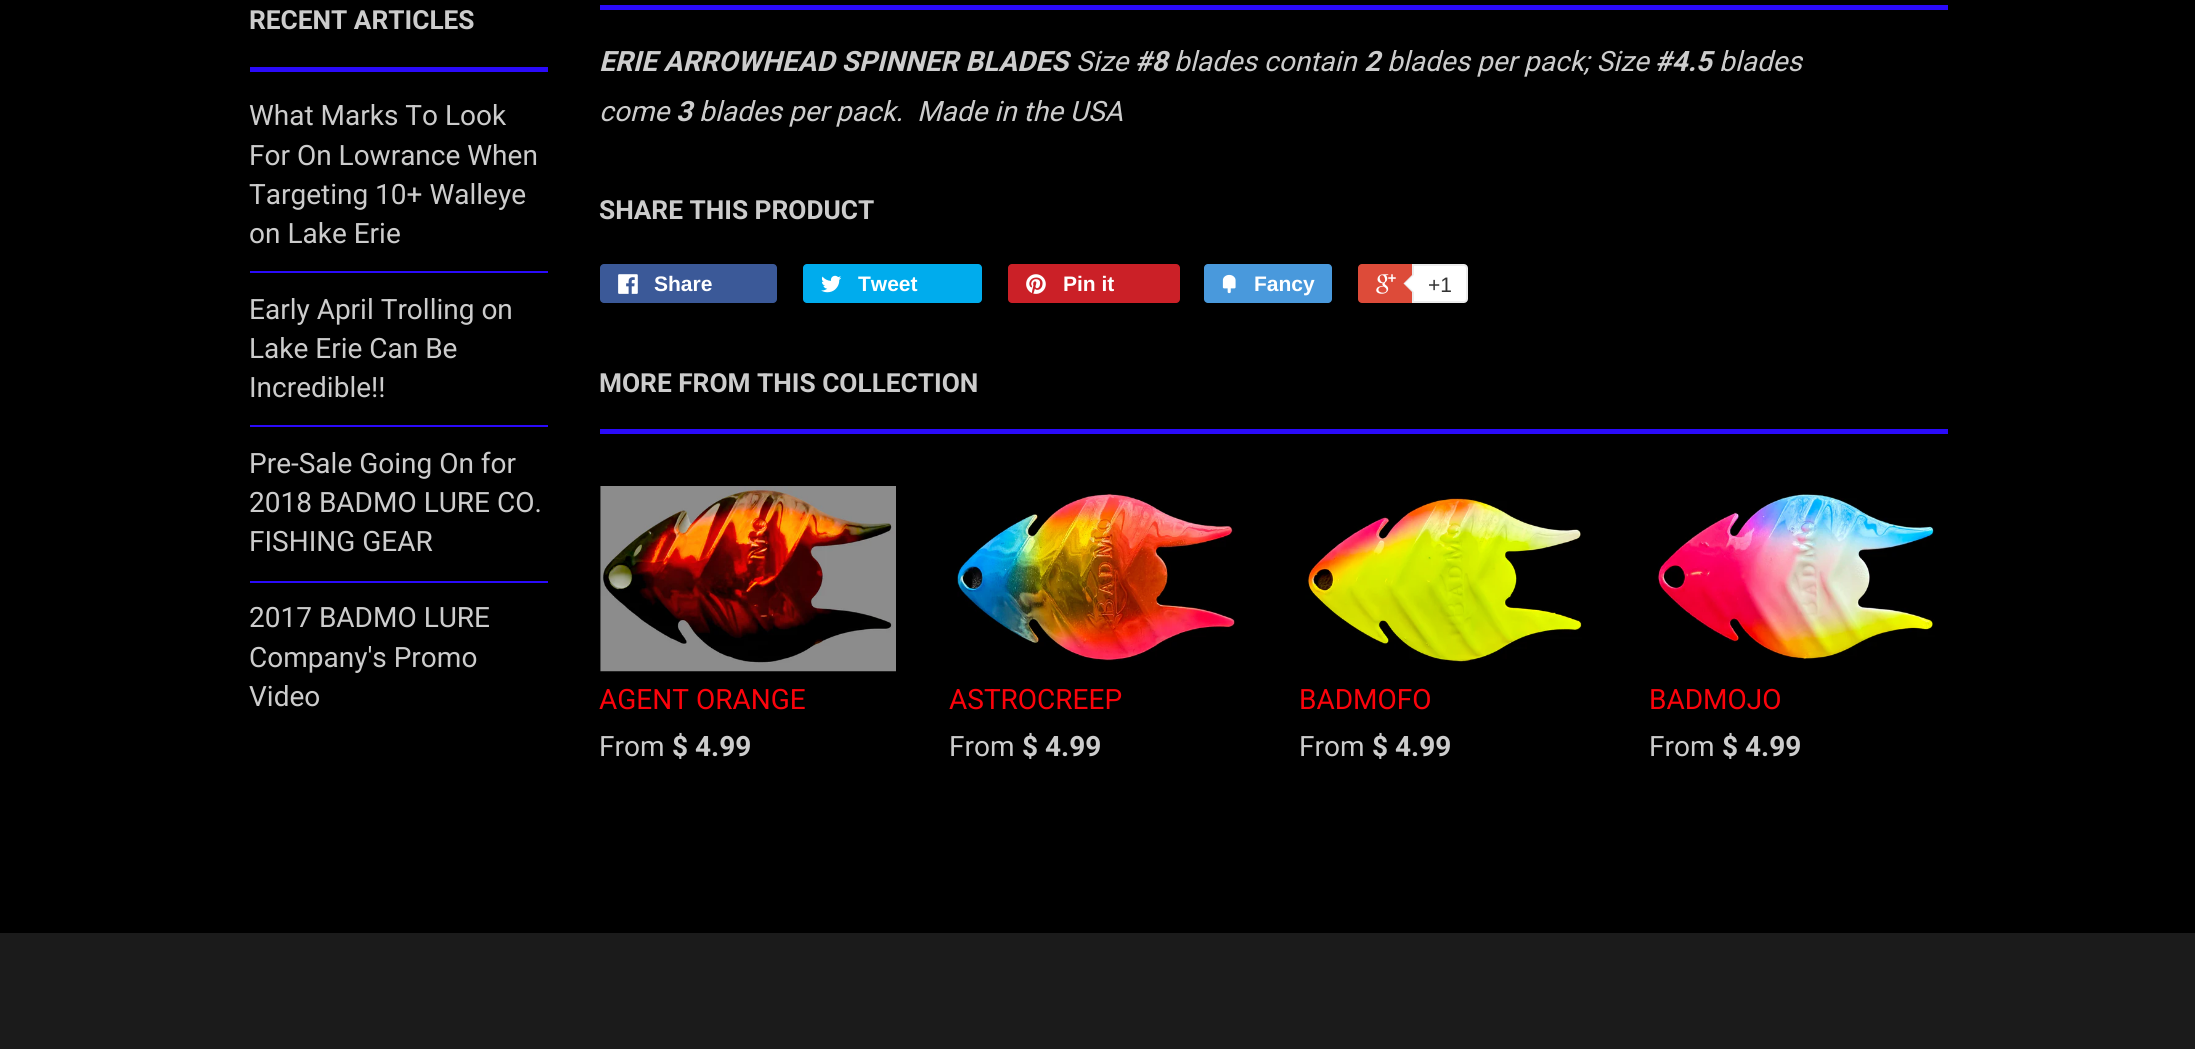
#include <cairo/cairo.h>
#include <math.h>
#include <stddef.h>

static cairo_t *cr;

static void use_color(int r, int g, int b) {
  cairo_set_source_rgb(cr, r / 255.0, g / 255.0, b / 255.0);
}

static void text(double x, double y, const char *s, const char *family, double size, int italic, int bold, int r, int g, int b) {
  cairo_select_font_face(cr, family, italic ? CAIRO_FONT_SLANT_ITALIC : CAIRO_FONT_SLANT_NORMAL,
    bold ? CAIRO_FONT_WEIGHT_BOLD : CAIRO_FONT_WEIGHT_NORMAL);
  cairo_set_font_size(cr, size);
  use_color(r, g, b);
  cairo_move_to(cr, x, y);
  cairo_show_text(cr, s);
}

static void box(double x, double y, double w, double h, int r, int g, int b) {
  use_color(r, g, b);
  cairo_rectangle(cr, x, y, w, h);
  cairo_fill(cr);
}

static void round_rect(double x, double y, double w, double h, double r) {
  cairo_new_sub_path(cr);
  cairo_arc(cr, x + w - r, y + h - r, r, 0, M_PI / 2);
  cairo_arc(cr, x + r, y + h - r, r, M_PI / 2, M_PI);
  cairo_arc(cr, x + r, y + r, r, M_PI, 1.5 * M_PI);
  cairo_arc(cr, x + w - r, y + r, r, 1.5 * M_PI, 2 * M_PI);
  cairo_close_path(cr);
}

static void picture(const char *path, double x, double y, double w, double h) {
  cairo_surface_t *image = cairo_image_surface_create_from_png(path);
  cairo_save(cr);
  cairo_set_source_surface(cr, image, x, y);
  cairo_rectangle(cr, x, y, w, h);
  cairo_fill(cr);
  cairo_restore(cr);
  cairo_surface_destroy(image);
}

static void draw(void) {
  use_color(0, 0, 0);
  cairo_paint(cr);
  box(250, 67, 298, 5, 42, 10, 250);
  box(250, 271, 298, 2, 42, 10, 250);
  box(250, 425, 298, 2, 42, 10, 250);
  box(250, 581, 298, 2, 42, 10, 250);
  box(600, 5, 1348, 5, 42, 10, 250);
  use_color(59, 89, 152);
  round_rect(600, 264, 177, 39, 4);
  cairo_fill(cr);
  picture("img_01.png", 618, 274, 20, 20);
  use_color(0, 172, 237);
  round_rect(803, 264, 179, 39, 4);
  cairo_fill(cr);
  picture("img_02.png", 821, 275, 21, 18);
  use_color(203, 32, 39);
  round_rect(1008, 264, 172, 39, 4);
  cairo_fill(cr);
  picture("img_03.png", 1026, 274, 20, 20);
  use_color(73, 153, 220);
  round_rect(1204, 264, 128, 39, 4);
  cairo_fill(cr);
  picture("img_04.png", 1222, 274, 14, 20);
  use_color(221, 75, 57);
  round_rect(1358, 264, 107, 39, 4);
  cairo_fill(cr);
  picture("img_05.png", 1376, 274, 20, 20);
  use_color(255, 255, 255);
  cairo_new_path(cr);
  cairo_move_to(cr, 1413, 265);
  cairo_line_to(cr, 1464, 265);
  cairo_curve_to(cr, 1465.5, 265, 1467, 266.5, 1467, 268);
  cairo_line_to(cr, 1467, 299);
  cairo_curve_to(cr, 1467, 300.5, 1465.5, 302, 1464, 302);
  cairo_line_to(cr, 1413, 302);
  cairo_close_path(cr);
  cairo_fill_preserve(cr);
  use_color(236, 236, 236);
  cairo_stroke(cr);
  cairo_new_path(cr);
  cairo_move_to(cr, 1414, 273);
  cairo_line_to(cr, 1414, 294);
  cairo_line_to(cr, 1403.5, 283.5);
  cairo_close_path(cr);
  cairo_fill(cr);
  use_color(255, 255, 255);
  cairo_new_path(cr);
  cairo_move_to(cr, 1416, 273);
  cairo_line_to(cr, 1416, 294);
  cairo_line_to(cr, 1405, 283.5);
  cairo_close_path(cr);
  cairo_fill(cr);
  box(600, 429, 1348, 5, 42, 10, 250);
  picture("img_06.png", 600, 486, 296, 186);
  picture("img_07.png", 957, 493, 278, 168);
  picture("img_08.png", 1305, 496, 277, 166);
  picture("img_09.png", 1655, 493, 280, 167);
  box(0, 933, 2195, 116, 27, 27, 27);
  text(249, 29, "RECENT ARTICLES", "Roboto", 26.25, 0, 1, 204, 204, 204);
  text(249, 125, "What Marks To Look", "Roboto", 28, 0, 0, 204, 204, 204);
  text(249, 165, "For On Lowrance When", "Roboto", 28, 0, 0, 204, 204, 204);
  text(249, 204, "Targeting 10+ Walleye", "Roboto", 28, 0, 0, 204, 204, 204);
  text(249, 243, "on Lake Erie", "Roboto", 28, 0, 0, 204, 204, 204);
  text(249, 319, "Early April Trolling on", "Roboto", 28, 0, 0, 204, 204, 204);
  text(249, 358, "Lake Erie Can Be", "Roboto", 28, 0, 0, 204, 204, 204);
  text(249, 397, "Incredible!!", "Roboto", 28, 0, 0, 204, 204, 204);
  text(249, 473, "Pre-Sale Going On for", "Roboto", 28, 0, 0, 204, 204, 204);
  text(249, 512, "2018 BADMO LURE CO.", "Roboto", 28, 0, 0, 204, 204, 204);
  text(249, 551, "FISHING GEAR", "Roboto", 28, 0, 0, 204, 204, 204);
  text(249, 627, "2017 BADMO LURE", "Roboto", 28, 0, 0, 204, 204, 204);
  text(249, 667, "Company's Promo", "Roboto", 28, 0, 0, 204, 204, 204);
  text(249, 706, "Video", "Roboto", 28, 0, 0, 204, 204, 204);
  text(599, 71, "ERIE ARROWHEAD SPINNER BLADES", "Roboto", 28, 1, 1, 204, 204, 204);
  text(1076, 71, "Size", "Roboto", 28, 1, 0, 204, 204, 204);
  text(1135, 71, "#8", "Roboto", 28, 1, 1, 204, 204, 204);
  text(1174, 71, "blades contain", "Roboto", 28, 1, 0, 204, 204, 204);
  text(1364, 71, "2", "Roboto", 28, 1, 1, 204, 204, 204);
  text(1387, 71, "blades per pack; Size", "Roboto", 28, 1, 0, 204, 204, 204);
  text(1655, 71, "#4.5", "Roboto", 28, 1, 1, 204, 204, 204);
  text(1719, 71, "blades", "Roboto", 28, 1, 0, 204, 204, 204);
  text(599, 121, "come", "Roboto", 28, 1, 0, 204, 204, 204);
  text(676, 121, "3", "Roboto", 28, 1, 1, 204, 204, 204);
  text(699, 121, "blades per pack.  Made in the USA", "Roboto", 28, 1, 0, 204, 204, 204);
  text(599, 219, "SHARE THIS PRODUCT", "Roboto", 26.25, 0, 1, 204, 204, 204);
  text(654, 291, "Share", "Liberation Sans", 21, 0, 1, 255, 255, 255);
  text(858, 291, "Tweet", "Liberation Sans", 21, 0, 1, 255, 255, 255);
  text(1063, 291, "Pin it", "Liberation Sans", 21, 0, 1, 255, 255, 255);
  text(1254, 291, "Fancy", "Liberation Sans", 21, 0, 1, 255, 255, 255);
  text(1428, 292, "+1", "Liberation Sans", 21, 0, 0, 51, 51, 51);
  text(599, 392, "MORE FROM THIS COLLECTION", "Roboto", 26.25, 0, 1, 204, 204, 204);
  text(599, 709, "AGENT ORANGE", "Roboto", 28, 0, 0, 252, 3, 11);
  text(599, 756, "From", "Roboto", 28, 0, 0, 204, 204, 204);
  text(672, 756, "$ 4.99", "Roboto", 28, 0, 1, 204, 204, 204);
  text(949, 709, "ASTROCREEP", "Roboto", 28, 0, 0, 252, 3, 11);
  text(949, 756, "From", "Roboto", 28, 0, 0, 204, 204, 204);
  text(1022, 756, "$ 4.99", "Roboto", 28, 0, 1, 204, 204, 204);
  text(1299, 709, "BADMOFO", "Roboto", 28, 0, 0, 252, 3, 11);
  text(1299, 756, "From", "Roboto", 28, 0, 0, 204, 204, 204);
  text(1372, 756, "$ 4.99", "Roboto", 28, 0, 1, 204, 204, 204);
  text(1649, 709, "BADMOJO", "Roboto", 28, 0, 0, 252, 3, 11);
  text(1649, 756, "From", "Roboto", 28, 0, 0, 204, 204, 204);
  text(1722, 756, "$ 4.99", "Roboto", 28, 0, 1, 204, 204, 204);
}

int main(void) {
  cairo_surface_t *surface = cairo_image_surface_create(CAIRO_FORMAT_RGB24, 2195, 1049);
  cr = cairo_create(surface);
  cairo_font_options_t *options = cairo_font_options_create();
  cairo_font_options_set_hint_metrics(options, CAIRO_HINT_METRICS_OFF);
  cairo_font_options_set_hint_style(options, CAIRO_HINT_STYLE_NONE);
  cairo_set_font_options(cr, options);
  cairo_set_miter_limit(cr, 4);
  draw();
  cairo_surface_write_to_png(surface, "out.png");
  cairo_font_options_destroy(options);
  cairo_destroy(cr);
  cairo_surface_destroy(surface);
  return 0;
}
